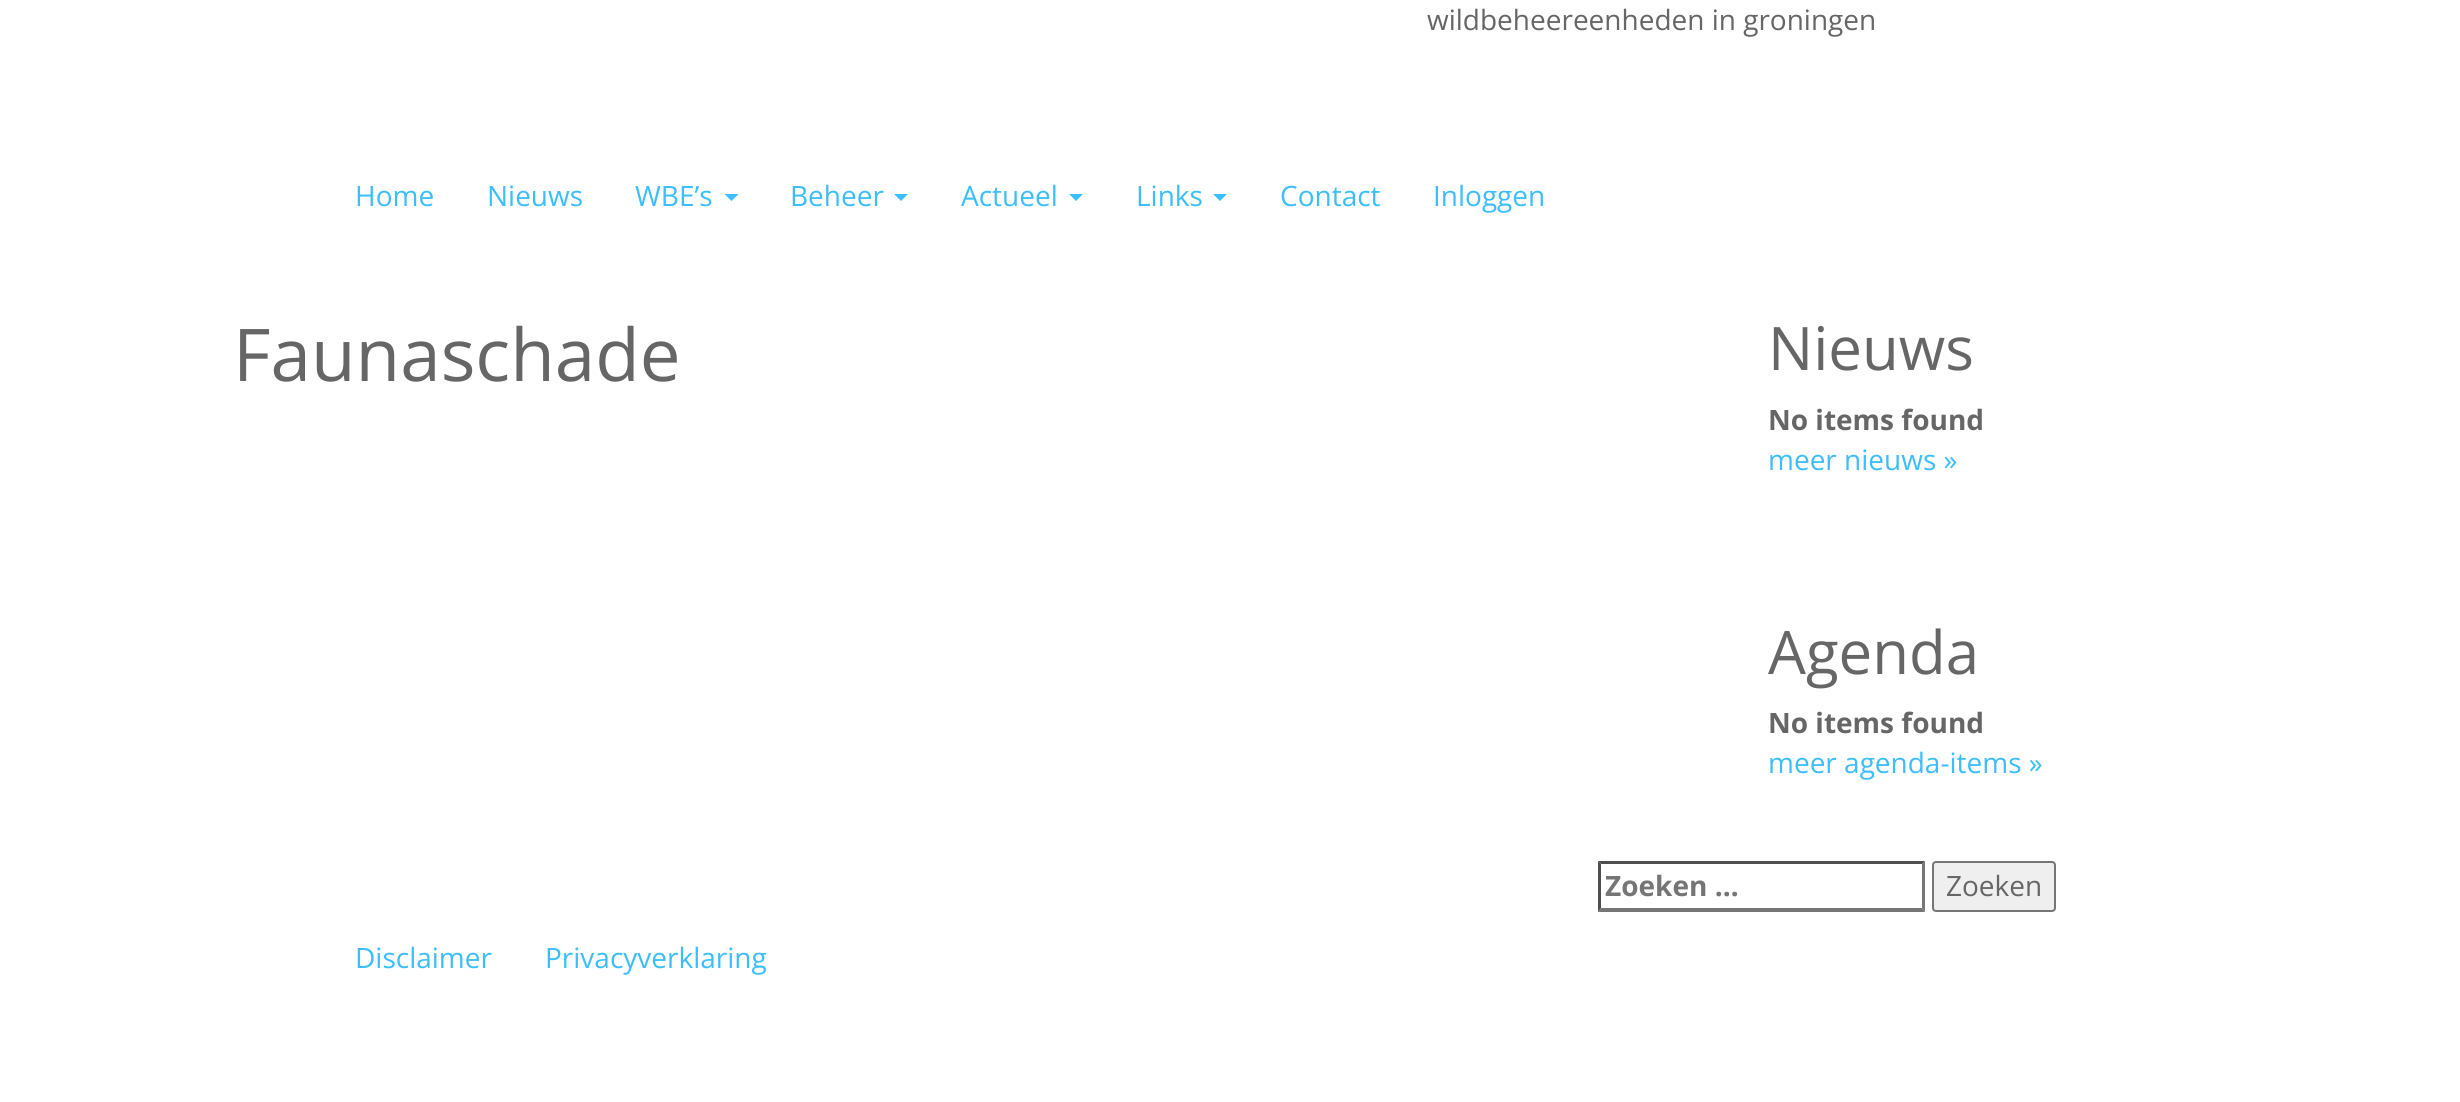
#include <cairo/cairo.h>
#include <math.h>
#include <stddef.h>

static cairo_t *cr;

static void use_color(int r, int g, int b) {
  cairo_set_source_rgb(cr, r / 255.0, g / 255.0, b / 255.0);
}

static void text(double x, double y, const char *s, const char *family, double size, int italic, int bold, int r, int g, int b) {
  cairo_select_font_face(cr, family, italic ? CAIRO_FONT_SLANT_ITALIC : CAIRO_FONT_SLANT_NORMAL,
    bold ? CAIRO_FONT_WEIGHT_BOLD : CAIRO_FONT_WEIGHT_NORMAL);
  cairo_set_font_size(cr, size);
  use_color(r, g, b);
  cairo_move_to(cr, x, y);
  cairo_show_text(cr, s);
}

static void round_rect(double x, double y, double w, double h, double r) {
  cairo_new_sub_path(cr);
  cairo_arc(cr, x + w - r, y + h - r, r, 0, M_PI / 2);
  cairo_arc(cr, x + r, y + h - r, r, M_PI / 2, M_PI);
  cairo_arc(cr, x + r, y + r, r, M_PI, 1.5 * M_PI);
  cairo_arc(cr, x + w - r, y + r, r, 1.5 * M_PI, 2 * M_PI);
  cairo_close_path(cr);
}

static void draw(void) {
  use_color(255, 255, 255);
  cairo_paint(cr);
  use_color(60, 190, 254);
  cairo_new_path(cr);
  cairo_move_to(cr, 724.5, 194);
  cairo_line_to(cr, 738.5, 194);
  cairo_line_to(cr, 731.5, 201);
  cairo_close_path(cr);
  cairo_fill(cr);
  cairo_new_path(cr);
  cairo_move_to(cr, 894, 194);
  cairo_line_to(cr, 908, 194);
  cairo_line_to(cr, 901, 201);
  cairo_close_path(cr);
  cairo_fill(cr);
  cairo_new_path(cr);
  cairo_move_to(cr, 1069, 194);
  cairo_line_to(cr, 1083, 194);
  cairo_line_to(cr, 1076, 201);
  cairo_close_path(cr);
  cairo_fill(cr);
  cairo_new_path(cr);
  cairo_move_to(cr, 1213, 194);
  cairo_line_to(cr, 1227, 194);
  cairo_line_to(cr, 1220, 201);
  cairo_close_path(cr);
  cairo_fill(cr);
  use_color(79, 79, 79);
  cairo_new_path(cr);
  cairo_move_to(cr, 1598, 861);
  cairo_line_to(cr, 1925, 861);
  cairo_line_to(cr, 1922, 864);
  cairo_line_to(cr, 1601, 864);
  cairo_close_path(cr);
  cairo_fill(cr);
  use_color(118, 118, 118);
  cairo_new_path(cr);
  cairo_move_to(cr, 1925, 861);
  cairo_line_to(cr, 1925, 912);
  cairo_line_to(cr, 1922, 908);
  cairo_line_to(cr, 1922, 864);
  cairo_close_path(cr);
  cairo_fill(cr);
  cairo_new_path(cr);
  cairo_move_to(cr, 1925, 912);
  cairo_line_to(cr, 1598, 912);
  cairo_line_to(cr, 1601, 908);
  cairo_line_to(cr, 1922, 908);
  cairo_close_path(cr);
  cairo_fill(cr);
  use_color(79, 79, 79);
  cairo_new_path(cr);
  cairo_move_to(cr, 1598, 912);
  cairo_line_to(cr, 1598, 861);
  cairo_line_to(cr, 1601, 864);
  cairo_line_to(cr, 1601, 908);
  cairo_close_path(cr);
  cairo_fill(cr);
  use_color(239, 239, 239);
  round_rect(1933, 862, 122, 49, 3);
  cairo_fill_preserve(cr);
  use_color(118, 118, 118);
  cairo_stroke(cr);
  text(1427, 30, "wildbeheereenheden in groningen", "Open Sans", 28, 0, 0, 102, 102, 102);
  text(355, 206, "Home", "Open Sans", 28, 0, 0, 60, 190, 254);
  text(487, 206, "Nieuws", "Open Sans", 28, 0, 0, 60, 190, 254);
  text(635, 206, "WBE’s", "Open Sans", 28, 0, 0, 60, 190, 254);
  text(790, 206, "Beheer", "Open Sans", 28, 0, 0, 60, 190, 254);
  text(961, 206, "Actueel", "Open Sans", 28, 0, 0, 60, 190, 254);
  text(1136, 206, "Links", "Open Sans", 28, 0, 0, 60, 190, 254);
  text(1280, 206, "Contact", "Open Sans", 28, 0, 0, 60, 190, 254);
  text(1433, 206, "Inloggen", "Open Sans", 28, 0, 0, 60, 190, 254);
  text(233, 381, "Faunaschade", "Open Sans", 72.75, 0, 0, 102, 102, 102);
  text(1768, 370, "Nieuws", "Open Sans", 60, 0, 0, 102, 102, 102);
  text(1768, 430, "No items found", "Open Sans", 28, 0, 1, 102, 102, 102);
  text(1768, 470, "meer nieuws »", "Open Sans", 28, 0, 0, 60, 190, 254);
  text(1768, 674, "Agenda", "Open Sans", 60, 0, 0, 102, 102, 102);
  text(1768, 733, "No items found", "Open Sans", 28, 0, 1, 102, 102, 102);
  text(1768, 773, "meer agenda-items »", "Open Sans", 28, 0, 0, 60, 190, 254);
  text(1605, 896, "Zoeken …", "Open Sans", 28, 0, 1, 117, 117, 117);
  text(1946, 896, "Zoeken", "Open Sans", 28, 0, 0, 102, 102, 102);
  text(355, 968, "Disclaimer", "Open Sans", 28, 0, 0, 60, 190, 254);
  text(545, 968, "Privacyverklaring", "Open Sans", 28, 0, 0, 60, 190, 254);
}

int main(void) {
  cairo_surface_t *surface = cairo_image_surface_create(CAIRO_FORMAT_RGB24, 2460, 1102);
  cr = cairo_create(surface);
  cairo_font_options_t *options = cairo_font_options_create();
  cairo_font_options_set_hint_metrics(options, CAIRO_HINT_METRICS_OFF);
  cairo_font_options_set_hint_style(options, CAIRO_HINT_STYLE_NONE);
  cairo_set_font_options(cr, options);
  cairo_set_miter_limit(cr, 4);
  draw();
  cairo_surface_write_to_png(surface, "out.png");
  cairo_font_options_destroy(options);
  cairo_destroy(cr);
  cairo_surface_destroy(surface);
  return 0;
}
